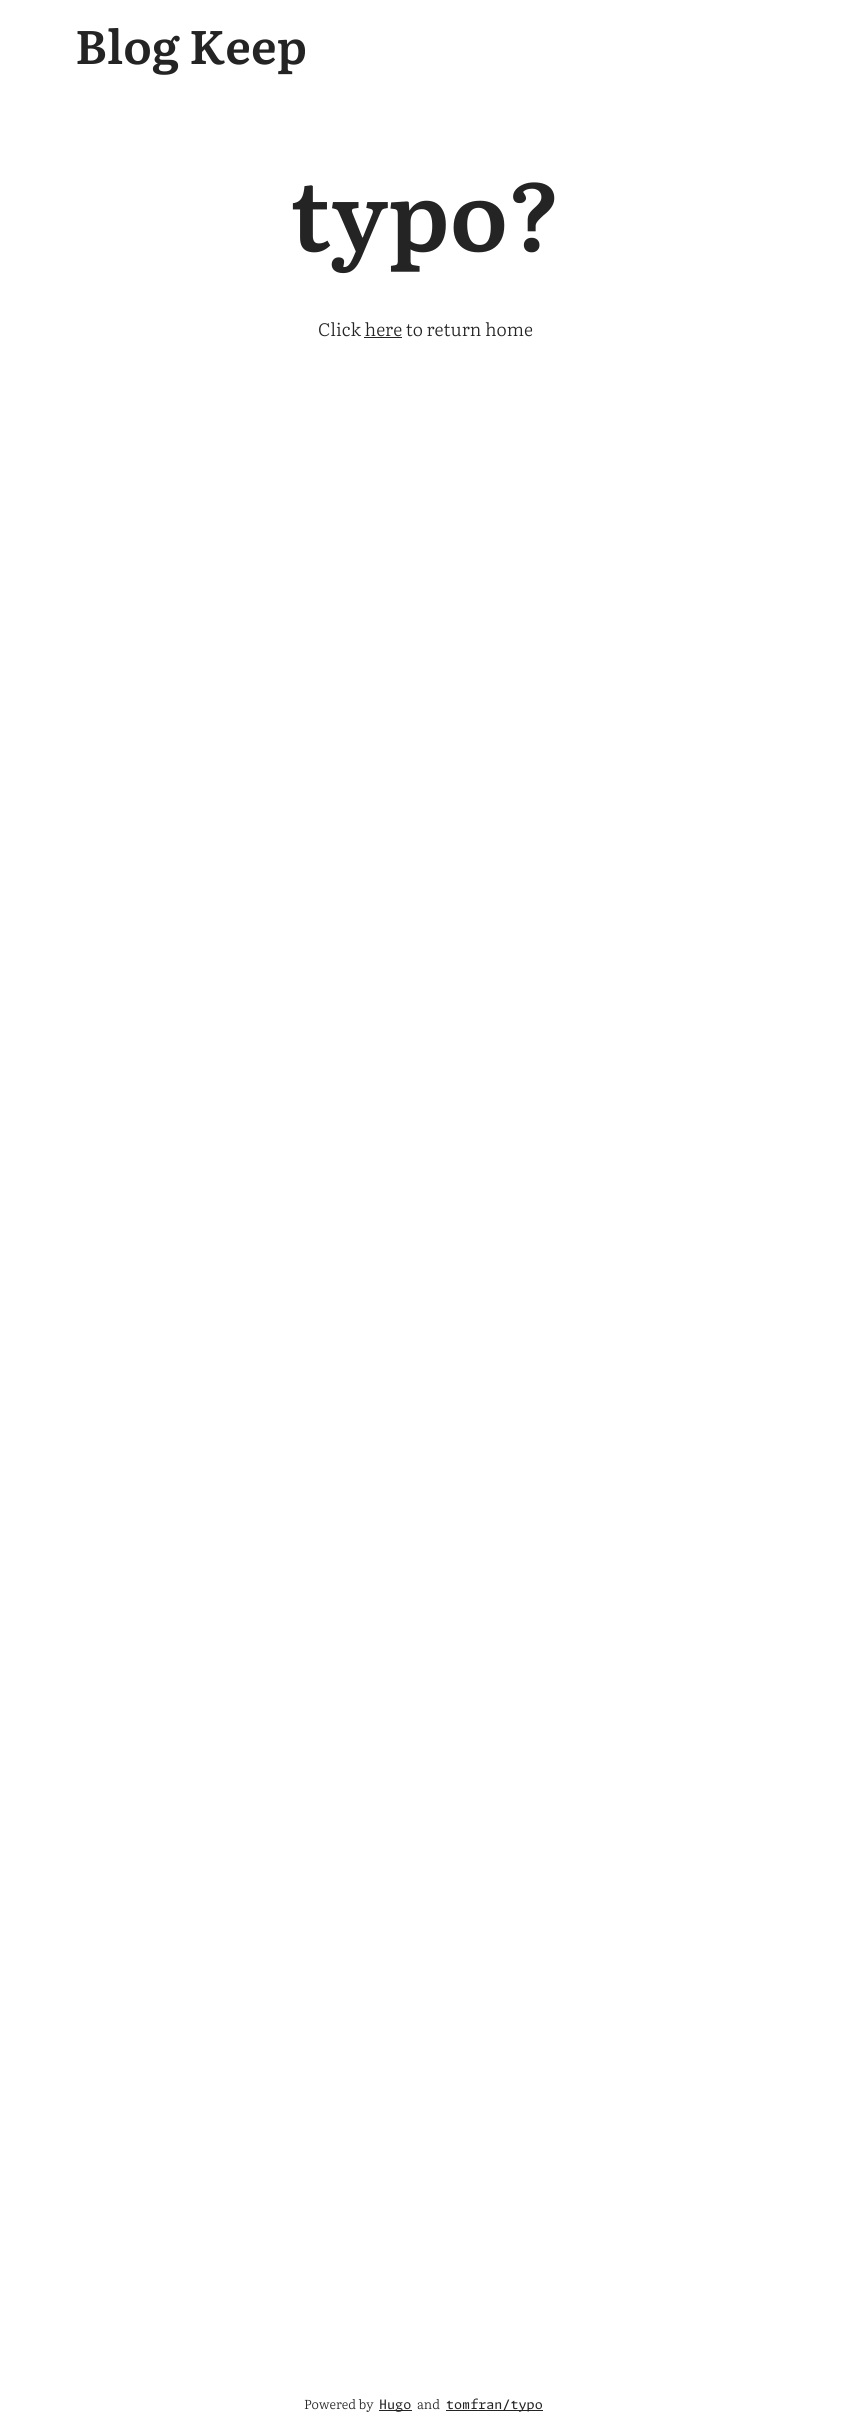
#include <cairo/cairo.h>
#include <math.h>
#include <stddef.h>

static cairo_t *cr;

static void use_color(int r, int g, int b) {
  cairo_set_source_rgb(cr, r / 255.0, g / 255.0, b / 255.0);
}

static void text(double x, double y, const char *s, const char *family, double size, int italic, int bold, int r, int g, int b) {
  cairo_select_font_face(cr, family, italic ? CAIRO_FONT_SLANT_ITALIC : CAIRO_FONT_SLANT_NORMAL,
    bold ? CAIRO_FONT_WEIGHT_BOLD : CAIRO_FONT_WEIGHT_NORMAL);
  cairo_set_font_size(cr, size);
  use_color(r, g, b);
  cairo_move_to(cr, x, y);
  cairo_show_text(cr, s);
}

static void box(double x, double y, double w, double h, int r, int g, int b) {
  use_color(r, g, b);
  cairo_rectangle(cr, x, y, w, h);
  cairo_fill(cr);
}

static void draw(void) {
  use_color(255, 255, 255);
  cairo_paint(cr);
  box(364, 337, 38, 1, 36, 36, 36);
  box(379, 2410, 33, 1, 36, 36, 36);
  box(446, 2410, 97, 1, 36, 36, 36);
  text(75, 64, "Blog Keep", "Literata SemiBold", 47, 0, 0, 36, 36, 36);
  text(290, 251, "typo?", "Literata SemiBold", 96, 0, 0, 36, 36, 36);
  text(318, 336, "Click here to return home", "Literata Light", 18, 0, 0, 36, 36, 36);
  text(304, 2409, "Powered by", "Literata Light", 13, 0, 0, 36, 36, 36);
  text(379, 2409, "Hugo", "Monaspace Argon", 13, 0, 0, 36, 36, 36);
  text(417, 2409, "and", "Literata Light", 13, 0, 0, 36, 36, 36);
  text(446, 2409, "tomfran/typo", "Monaspace Argon", 13, 0, 0, 36, 36, 36);
}

int main(void) {
  cairo_surface_t *surface = cairo_image_surface_create(CAIRO_FORMAT_RGB24, 850, 2429);
  cr = cairo_create(surface);
  cairo_font_options_t *options = cairo_font_options_create();
  cairo_font_options_set_hint_metrics(options, CAIRO_HINT_METRICS_OFF);
  cairo_font_options_set_hint_style(options, CAIRO_HINT_STYLE_NONE);
  cairo_set_font_options(cr, options);
  cairo_set_miter_limit(cr, 4);
  draw();
  cairo_surface_write_to_png(surface, "out.png");
  cairo_font_options_destroy(options);
  cairo_destroy(cr);
  cairo_surface_destroy(surface);
  return 0;
}
